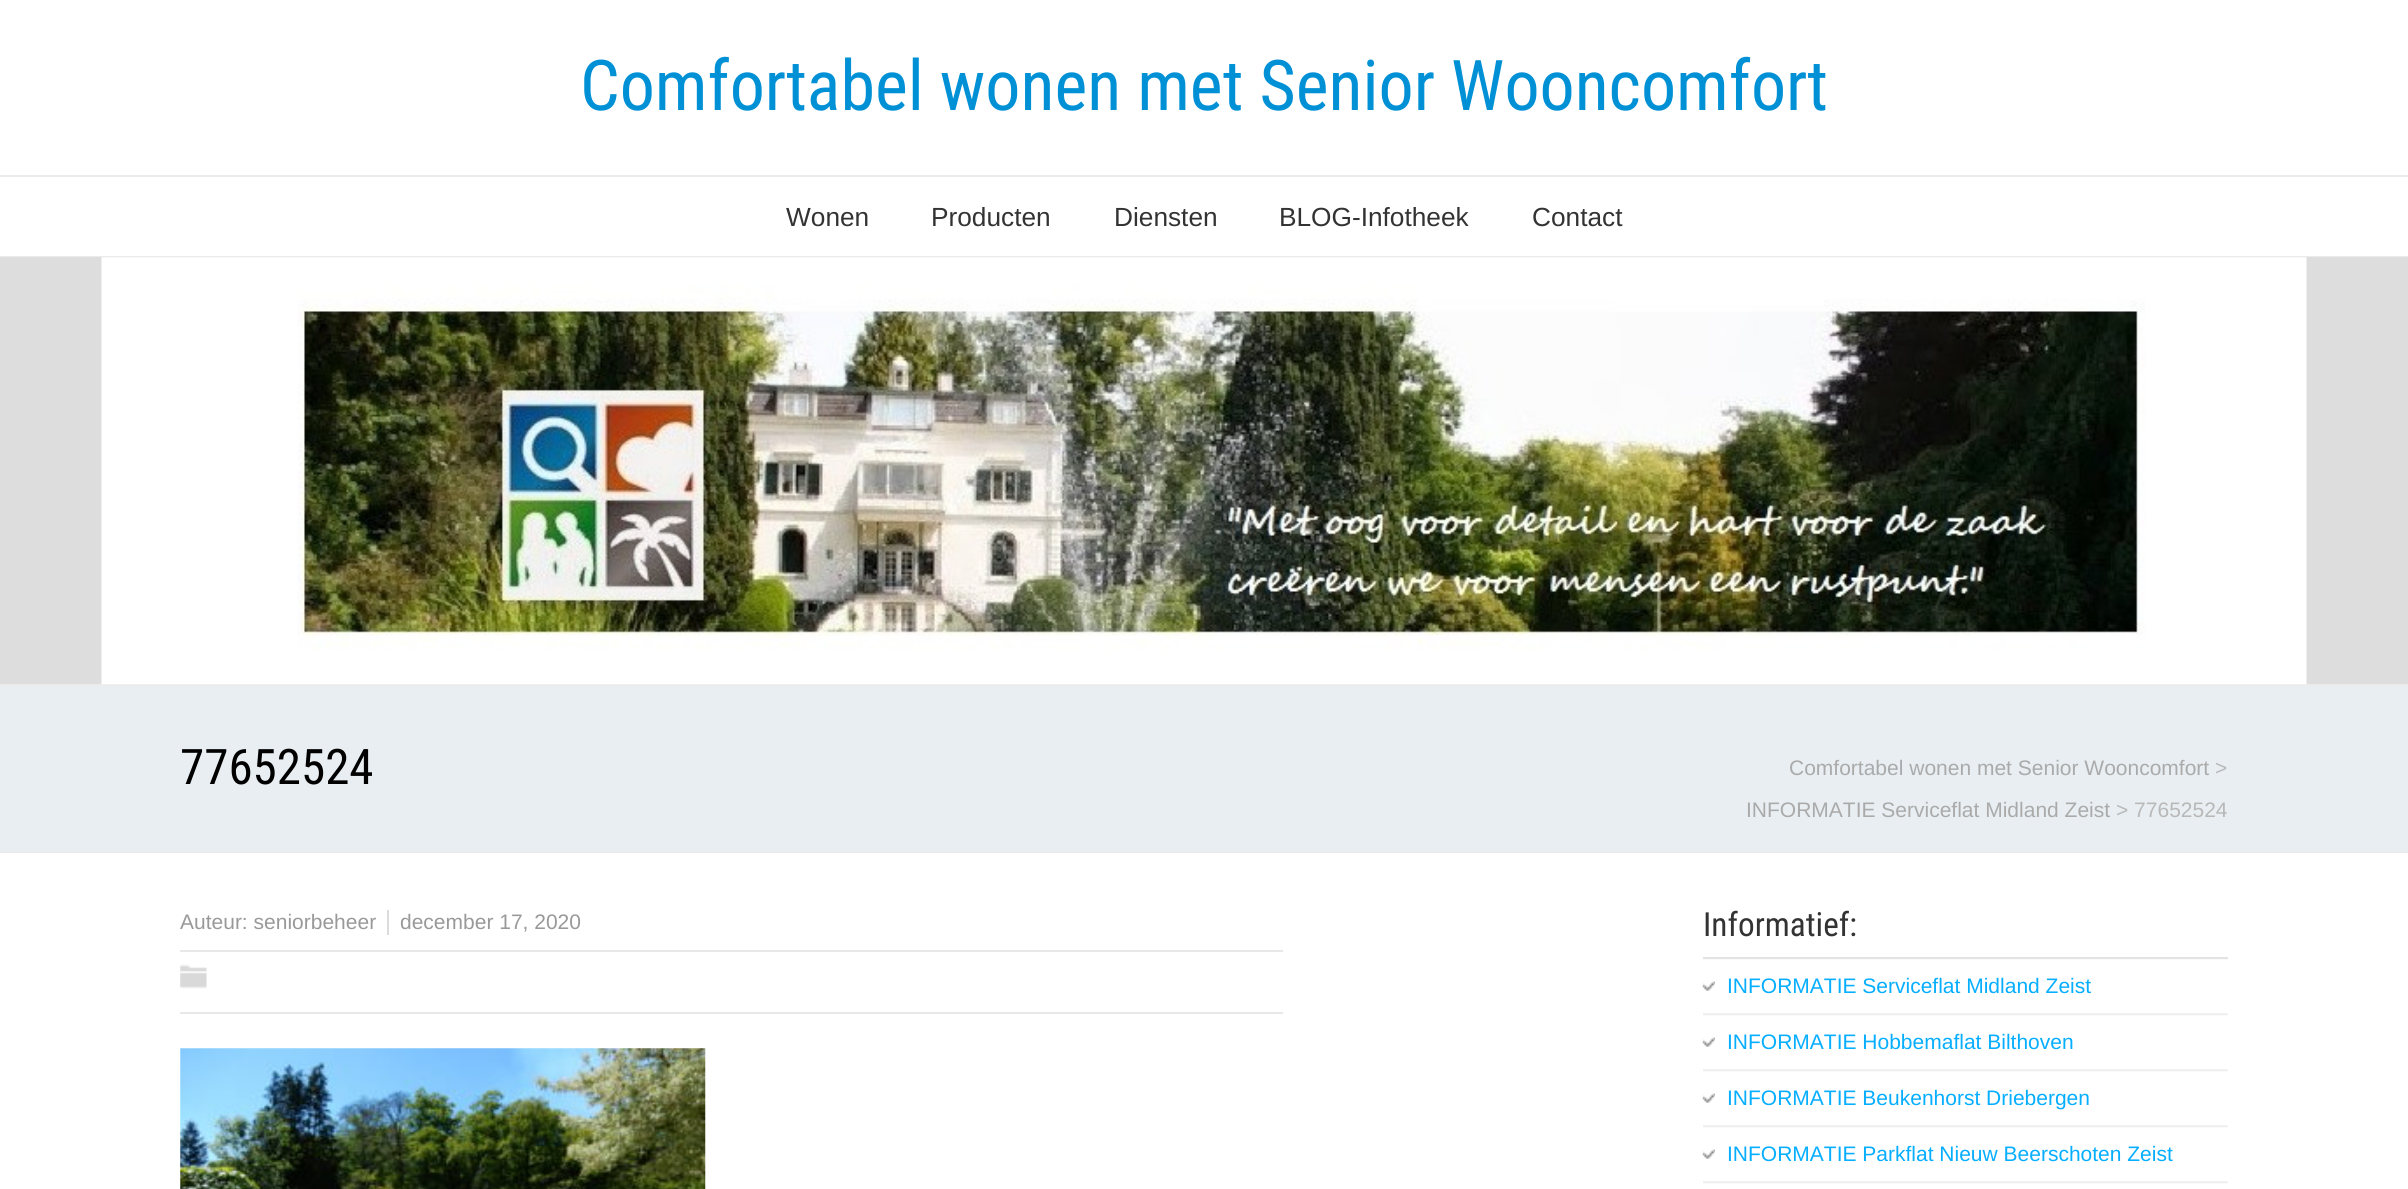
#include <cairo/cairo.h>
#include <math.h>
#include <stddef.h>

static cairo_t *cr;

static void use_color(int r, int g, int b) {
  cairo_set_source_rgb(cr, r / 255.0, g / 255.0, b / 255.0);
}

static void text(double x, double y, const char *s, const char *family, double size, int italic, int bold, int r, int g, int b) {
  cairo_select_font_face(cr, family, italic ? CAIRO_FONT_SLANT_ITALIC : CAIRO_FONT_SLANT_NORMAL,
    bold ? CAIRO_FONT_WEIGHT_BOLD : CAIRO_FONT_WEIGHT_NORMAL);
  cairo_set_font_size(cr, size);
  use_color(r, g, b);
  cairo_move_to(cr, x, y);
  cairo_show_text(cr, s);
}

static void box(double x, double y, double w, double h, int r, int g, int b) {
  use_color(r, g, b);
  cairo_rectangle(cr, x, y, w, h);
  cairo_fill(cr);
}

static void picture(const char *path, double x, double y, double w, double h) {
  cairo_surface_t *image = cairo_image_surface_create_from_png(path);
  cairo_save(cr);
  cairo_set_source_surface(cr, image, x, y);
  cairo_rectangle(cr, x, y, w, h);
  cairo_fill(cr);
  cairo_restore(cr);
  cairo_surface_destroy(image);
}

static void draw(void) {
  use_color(255, 255, 255);
  cairo_paint(cr);
  box(0, 175, 2408, 2, 235, 235, 235);
  box(0, 256, 2408, 1, 235, 235, 235);
  box(0, 257, 2408, 427, 221, 221, 221);
  box(0, 684, 2408, 2, 235, 235, 235);
  picture("img_01.png", 101, 257, 2206, 428);
  box(0, 686, 2408, 165, 232, 238, 241);
  box(0, 851, 2408, 2, 235, 235, 235);
  box(387, 910, 2, 25, 219, 219, 219);
  box(180, 950, 1103, 2, 232, 232, 232);
  box(180, 1012, 1103, 2, 232, 232, 232);
  picture("img_02.png", 180, 964, 27, 25);
  picture("img_03.png", 180, 1048, 526, 141);
  box(1703, 957, 525, 2, 227, 227, 227);
  picture("img_04.png", 1703, 959, 525, 225);
  picture("img_05.png", 1702, 981, 13, 10);
  picture("img_05.png", 1702, 1037, 13, 10);
  picture("img_05.png", 1702, 1093, 13, 10);
  picture("img_05.png", 1702, 1149, 13, 10);
  text(580, 110, "Comfortabel wonen met Senior Wooncomfort", "Roboto Condensed", 70, 0, 0, 0, 144, 213);
  text(786, 226, "Wonen", "Liberation Sans", 26.25, 0, 0, 51, 51, 51);
  text(931, 226, "Producten", "Liberation Sans", 26.25, 0, 0, 51, 51, 51);
  text(1114, 226, "Diensten", "Liberation Sans", 26.25, 0, 0, 51, 51, 51);
  text(1279, 226, "BLOG-Infotheek", "Liberation Sans", 26.25, 0, 0, 51, 51, 51);
  text(1532, 226, "Contact", "Liberation Sans", 26.25, 0, 0, 51, 51, 51);
  text(180, 784, "77652524", "Roboto Condensed", 49, 0, 0, 0, 0, 0);
  text(1789, 775, "Comfortabel wonen met Senior Wooncomfort", "Liberation Sans", 21, 0, 0, 170, 170, 170);
  text(2215, 775, ">", "Liberation Sans", 21, 0, 0, 184, 184, 184);
  text(1746, 817, "INFORMATIE Serviceflat Midland Zeist", "Liberation Sans", 21, 0, 0, 170, 170, 170);
  text(2116, 817, "> 77652524", "Liberation Sans", 21, 0, 0, 184, 184, 184);
  text(180, 929, "Auteur: seniorbeheer", "Liberation Sans", 21, 0, 0, 153, 153, 153);
  text(400, 929, "december 17, 2020", "Liberation Sans", 21, 0, 0, 153, 153, 153);
  text(1703, 936, "Informatief:", "Roboto Condensed", 33.25, 0, 0, 51, 51, 51);
  text(1727, 993, "INFORMATIE Serviceflat Midland Zeist", "Liberation Sans", 21, 0, 0, 6, 174, 255);
  text(1727, 1049, "INFORMATIE Hobbemaflat Bilthoven", "Liberation Sans", 21, 0, 0, 6, 174, 255);
  text(1727, 1105, "INFORMATIE Beukenhorst Driebergen", "Liberation Sans", 21, 0, 0, 6, 174, 255);
  text(1727, 1161, "INFORMATIE Parkflat Nieuw Beerschoten Zeist", "Liberation Sans", 21, 0, 0, 6, 174, 255);
}

int main(void) {
  cairo_surface_t *surface = cairo_image_surface_create(CAIRO_FORMAT_RGB24, 2408, 1189);
  cr = cairo_create(surface);
  cairo_font_options_t *options = cairo_font_options_create();
  cairo_font_options_set_hint_metrics(options, CAIRO_HINT_METRICS_OFF);
  cairo_font_options_set_hint_style(options, CAIRO_HINT_STYLE_NONE);
  cairo_set_font_options(cr, options);
  cairo_set_miter_limit(cr, 4);
  draw();
  cairo_surface_write_to_png(surface, "out.png");
  cairo_font_options_destroy(options);
  cairo_destroy(cr);
  cairo_surface_destroy(surface);
  return 0;
}
